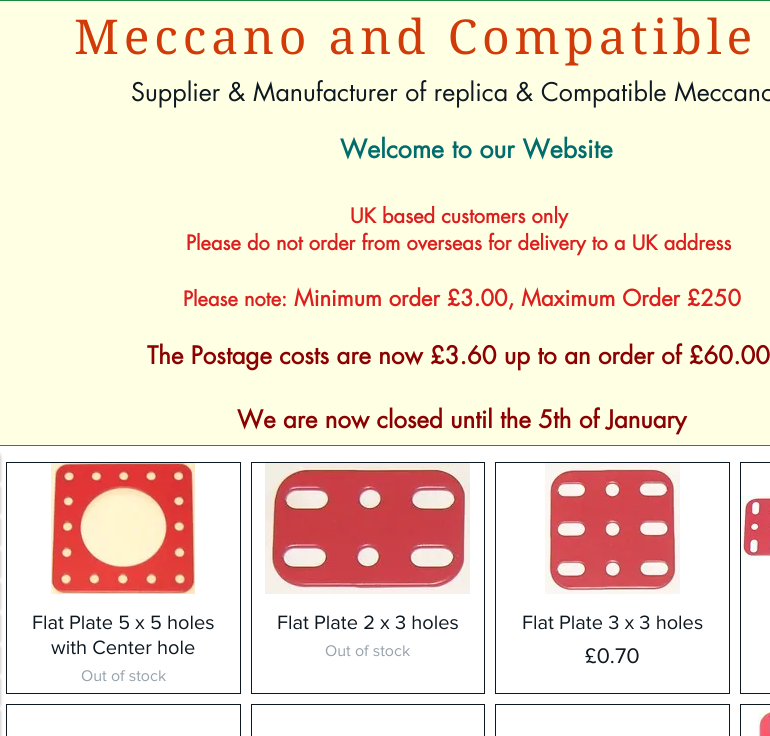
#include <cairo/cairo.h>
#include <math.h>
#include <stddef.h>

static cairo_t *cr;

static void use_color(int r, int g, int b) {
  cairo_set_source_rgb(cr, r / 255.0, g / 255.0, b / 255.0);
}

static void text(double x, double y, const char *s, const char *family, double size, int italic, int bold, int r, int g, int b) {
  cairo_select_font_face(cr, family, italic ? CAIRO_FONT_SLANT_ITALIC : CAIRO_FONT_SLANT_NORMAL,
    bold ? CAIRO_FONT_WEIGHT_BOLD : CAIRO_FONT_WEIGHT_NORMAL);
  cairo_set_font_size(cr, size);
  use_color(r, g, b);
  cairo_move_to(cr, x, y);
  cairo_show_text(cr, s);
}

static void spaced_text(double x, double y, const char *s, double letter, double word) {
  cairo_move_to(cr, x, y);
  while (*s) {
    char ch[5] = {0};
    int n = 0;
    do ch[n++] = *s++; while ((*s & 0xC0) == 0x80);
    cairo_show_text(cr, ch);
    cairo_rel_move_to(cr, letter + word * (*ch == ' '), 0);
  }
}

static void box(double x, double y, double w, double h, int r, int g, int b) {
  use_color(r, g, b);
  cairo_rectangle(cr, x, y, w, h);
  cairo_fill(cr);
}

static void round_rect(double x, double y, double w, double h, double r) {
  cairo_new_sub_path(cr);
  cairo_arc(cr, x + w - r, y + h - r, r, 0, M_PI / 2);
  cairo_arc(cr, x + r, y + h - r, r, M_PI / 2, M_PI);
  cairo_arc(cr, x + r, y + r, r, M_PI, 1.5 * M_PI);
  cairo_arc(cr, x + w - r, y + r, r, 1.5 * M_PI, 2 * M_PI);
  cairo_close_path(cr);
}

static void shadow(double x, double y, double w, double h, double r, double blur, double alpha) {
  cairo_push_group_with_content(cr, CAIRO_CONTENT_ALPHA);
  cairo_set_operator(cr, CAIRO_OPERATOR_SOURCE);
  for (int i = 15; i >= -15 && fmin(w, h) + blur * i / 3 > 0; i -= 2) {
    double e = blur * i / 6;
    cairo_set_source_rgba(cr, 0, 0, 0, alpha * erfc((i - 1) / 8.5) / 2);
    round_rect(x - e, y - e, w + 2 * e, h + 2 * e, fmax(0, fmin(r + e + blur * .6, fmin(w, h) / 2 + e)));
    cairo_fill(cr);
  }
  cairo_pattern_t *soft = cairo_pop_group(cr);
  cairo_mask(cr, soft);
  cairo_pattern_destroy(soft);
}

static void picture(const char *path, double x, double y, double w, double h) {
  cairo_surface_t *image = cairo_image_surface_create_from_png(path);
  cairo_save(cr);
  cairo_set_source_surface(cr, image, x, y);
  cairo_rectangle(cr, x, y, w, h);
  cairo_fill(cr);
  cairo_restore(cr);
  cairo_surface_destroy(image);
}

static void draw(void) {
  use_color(255, 255, 255);
  cairo_paint(cr);
  box(0, 0, 770, 1, 28, 138, 67);
  box(0, 445, 770, 1, 28, 138, 67);
  box(0, 1, 770, 444, 255, 255, 227);
  use_color(0, 0, 0);
  shadow(-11, 453, 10, 31, 5, 2, 0.6);
  shadow(-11, 485, 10, 31, 5, 2, 0.6);
  shadow(-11, 517, 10, 31, 5, 2, 0.6);
  shadow(-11, 549, 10, 31, 5, 2, 0.6);
  shadow(-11, 581, 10, 31, 5, 2, 0.6);
  shadow(-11, 613, 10, 31, 5, 2, 0.6);
  shadow(-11, 645, 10, 31, 5, 2, 0.6);
  shadow(-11, 677, 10, 31, 5, 2, 0.6);
  shadow(-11, 709, 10, 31, 5, 2, 0.6);
  cairo_rectangle(cr, 6.5, 462.5, 234, 231);
  use_color(14, 24, 33);
  cairo_set_line_width(cr, 1);
  cairo_stroke(cr);
  picture("img_01.png", 51, 463, 144, 131);
  cairo_rectangle(cr, 251.5, 462.5, 233, 231);
  cairo_stroke(cr);
  picture("img_02.png", 265, 463, 205, 131);
  cairo_rectangle(cr, 495.5, 462.5, 234, 231);
  cairo_stroke(cr);
  picture("img_03.png", 545, 463, 135, 131);
  cairo_rectangle(cr, 740.5, 462.5, 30, 231);
  cairo_stroke(cr);
  picture("img_04.png", 741, 496, 29, 64);
  cairo_rectangle(cr, 6.5, 704.5, 234, 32);
  cairo_stroke(cr);
  cairo_rectangle(cr, 251.5, 704.5, 233, 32);
  cairo_stroke(cr);
  cairo_rectangle(cr, 495.5, 704.5, 234, 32);
  cairo_stroke(cr);
  cairo_rectangle(cr, 740.5, 704.5, 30, 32);
  cairo_stroke(cr);
  picture("img_05.png", 758, 707, 12, 29);
  cairo_select_font_face(cr, "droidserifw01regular", CAIRO_FONT_SLANT_NORMAL, CAIRO_FONT_WEIGHT_NORMAL);
  cairo_set_font_size(cr, 48);
  use_color(209, 59, 10);
  spaced_text(74, 54, "Meccano and Compatible", 4.8, 0);
  text(131, 101, "Supplier & Manufacturer of replica & Compatible Meccano", "futura", 25, 0, 0, 14, 24, 33);
  text(340, 158, "Welcome to our Website", "futura", 25, 0, 1, 0, 108, 109);
  text(350, 223, "UK based customers only", "futura", 20, 0, 1, 219, 31, 31);
  text(186, 250, "Please do not order from overseas for delivery to a UK address", "futura", 20, 0, 1, 219, 31, 31);
  text(183, 306, "Please note:", "futura", 20, 0, 1, 219, 31, 31);
  text(294, 306, "Minimum order £3.00, Maximum Order £250", "futura", 22, 0, 1, 219, 31, 31);
  text(147, 364, "The Postage costs are now £3.60 up to an order of £60.00", "futura", 24, 0, 1, 139, 0, 0);
  text(237, 428, "We are now closed until the 5th of January", "futura", 24, 0, 1, 139, 0, 0);
  text(32, 629, "Flat Plate 5 x 5 holes", "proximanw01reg", 20, 0, 0, 14, 24, 33);
  text(51, 654, "with Center hole", "proximanw01reg", 20, 0, 0, 14, 24, 33);
  text(81, 681, "Out of stock", "proximanw01reg", 16, 0, 0, 151, 162, 171);
  text(277, 629, "Flat Plate 2 x 3 holes", "proximanw01reg", 20, 0, 0, 14, 24, 33);
  text(325, 656, "Out of stock", "proximanw01reg", 16, 0, 0, 151, 162, 171);
  text(522, 629, "Flat Plate 3 x 3 holes", "proximanw01reg", 20, 0, 0, 14, 24, 33);
  text(585, 663, "£0.70", "proximanw01reg", 22, 0, 0, 14, 24, 33);
}

int main(void) {
  cairo_surface_t *surface = cairo_image_surface_create(CAIRO_FORMAT_RGB24, 770, 736);
  cr = cairo_create(surface);
  cairo_font_options_t *options = cairo_font_options_create();
  cairo_font_options_set_hint_metrics(options, CAIRO_HINT_METRICS_OFF);
  cairo_font_options_set_hint_style(options, CAIRO_HINT_STYLE_NONE);
  cairo_set_font_options(cr, options);
  cairo_set_miter_limit(cr, 4);
  draw();
  cairo_surface_write_to_png(surface, "out.png");
  cairo_font_options_destroy(options);
  cairo_destroy(cr);
  cairo_surface_destroy(surface);
  return 0;
}
